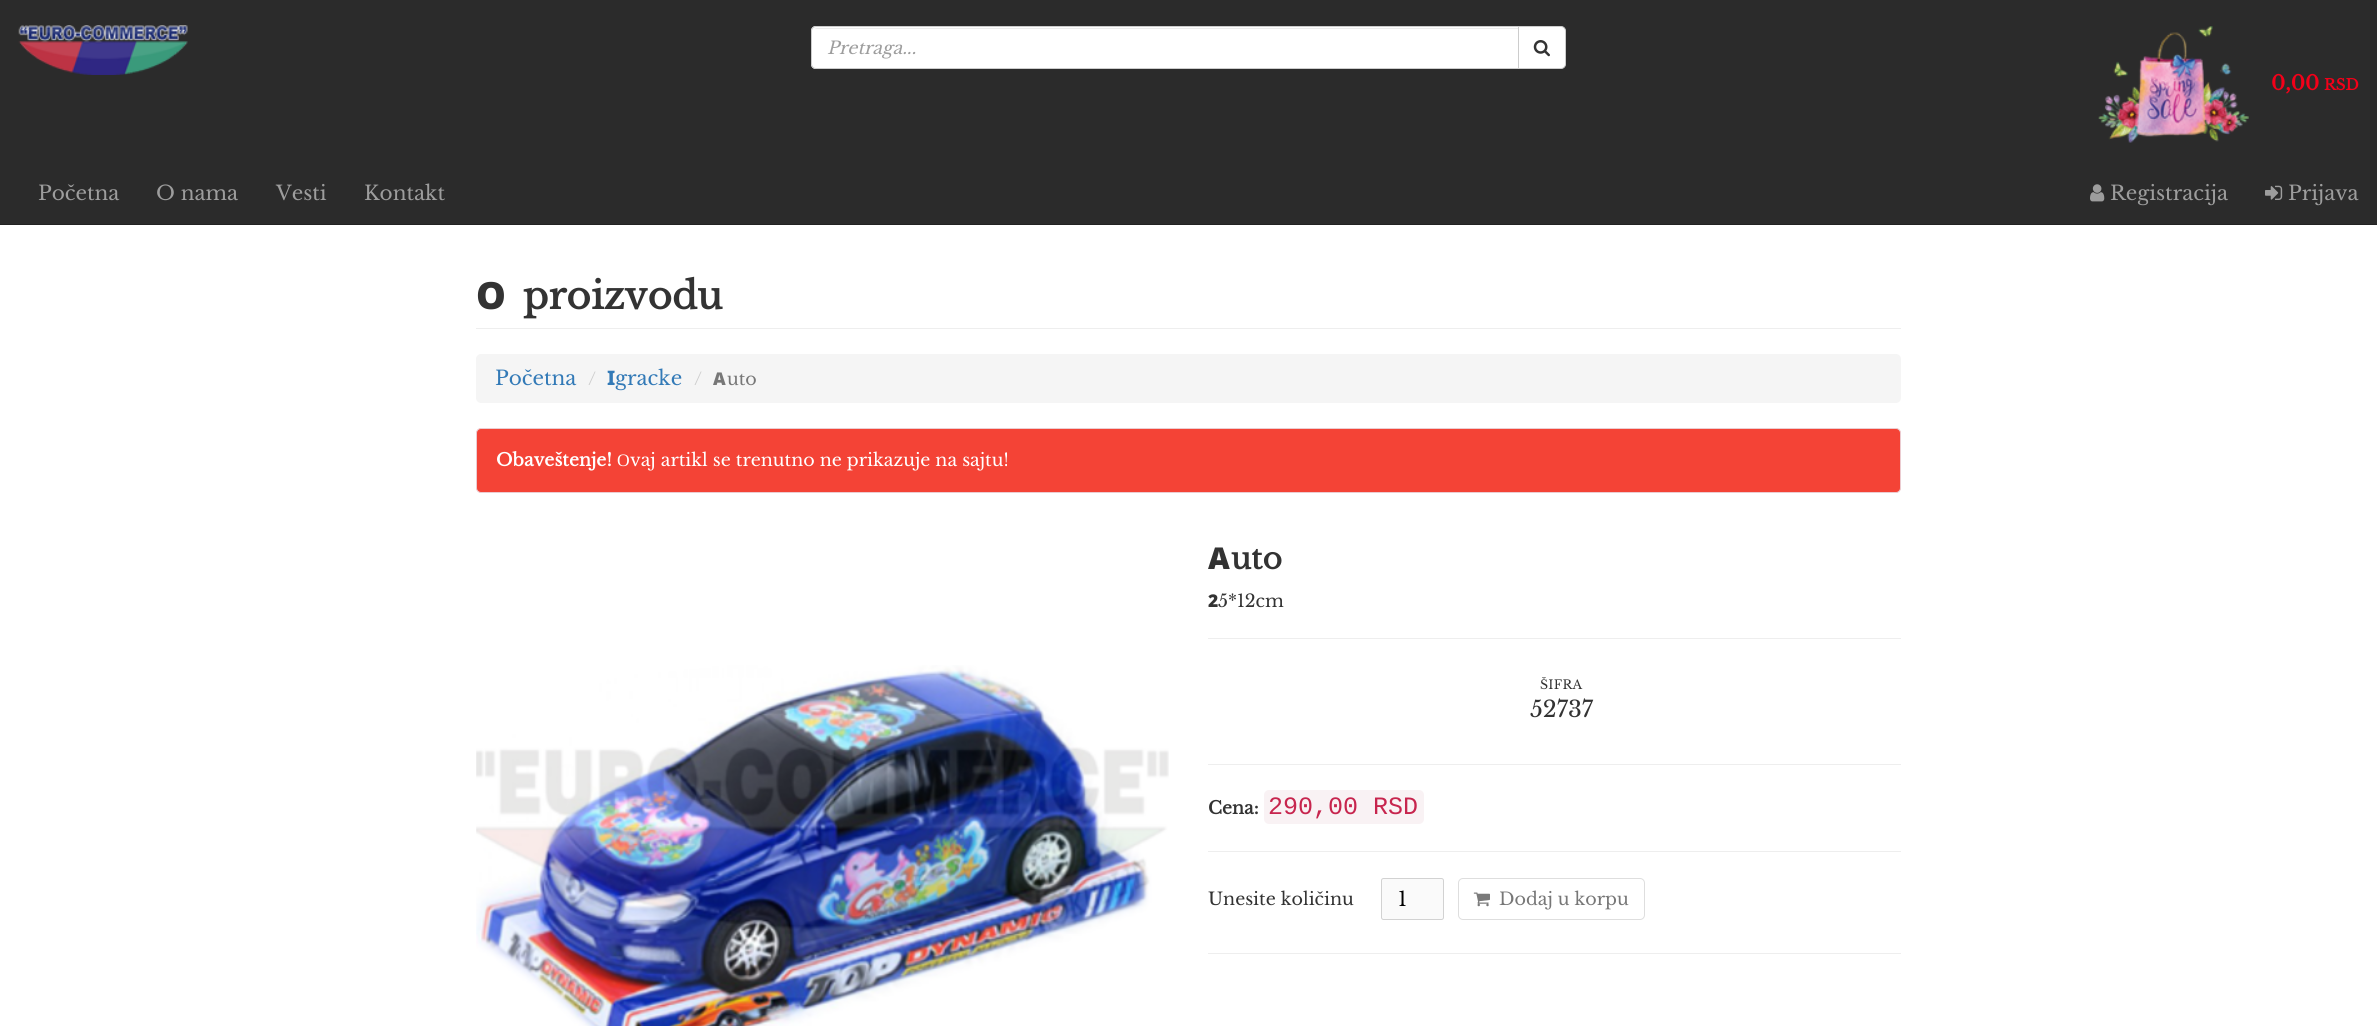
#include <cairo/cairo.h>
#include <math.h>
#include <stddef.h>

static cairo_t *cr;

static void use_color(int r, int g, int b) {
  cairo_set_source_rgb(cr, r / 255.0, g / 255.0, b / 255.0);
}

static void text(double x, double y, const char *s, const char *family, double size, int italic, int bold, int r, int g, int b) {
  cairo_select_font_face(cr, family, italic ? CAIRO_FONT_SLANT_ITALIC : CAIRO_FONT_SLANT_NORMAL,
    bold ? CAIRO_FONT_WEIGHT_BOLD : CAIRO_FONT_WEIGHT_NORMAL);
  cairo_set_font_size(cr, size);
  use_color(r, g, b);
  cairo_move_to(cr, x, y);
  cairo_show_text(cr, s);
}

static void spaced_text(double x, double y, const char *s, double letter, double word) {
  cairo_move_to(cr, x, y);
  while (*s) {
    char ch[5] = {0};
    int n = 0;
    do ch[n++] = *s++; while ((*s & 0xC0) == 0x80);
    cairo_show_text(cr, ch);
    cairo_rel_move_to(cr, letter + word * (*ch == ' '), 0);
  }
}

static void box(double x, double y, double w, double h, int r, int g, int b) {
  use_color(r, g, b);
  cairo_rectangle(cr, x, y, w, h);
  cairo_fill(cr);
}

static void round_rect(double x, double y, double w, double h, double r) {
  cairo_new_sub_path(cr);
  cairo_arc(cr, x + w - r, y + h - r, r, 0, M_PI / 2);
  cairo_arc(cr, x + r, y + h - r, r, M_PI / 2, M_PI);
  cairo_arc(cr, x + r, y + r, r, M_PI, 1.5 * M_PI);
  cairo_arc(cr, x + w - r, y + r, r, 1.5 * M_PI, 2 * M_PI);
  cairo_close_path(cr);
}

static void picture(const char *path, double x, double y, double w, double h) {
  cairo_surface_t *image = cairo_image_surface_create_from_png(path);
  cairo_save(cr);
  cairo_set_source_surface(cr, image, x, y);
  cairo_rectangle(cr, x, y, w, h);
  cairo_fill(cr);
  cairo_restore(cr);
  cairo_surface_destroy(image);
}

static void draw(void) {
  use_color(255, 255, 255);
  cairo_paint(cr);
  box(0, 0, 2377, 224, 43, 43, 43);
  box(0, 224, 2377, 1, 34, 34, 34);
  picture("img_01.png", 18, 25, 170, 50);
  use_color(255, 255, 255);
  cairo_new_path(cr);
  cairo_move_to(cr, 816, 26);
  cairo_line_to(cr, 1519, 26);
  cairo_line_to(cr, 1519, 69);
  cairo_line_to(cr, 816, 69);
  cairo_curve_to(cr, 813, 69, 811, 67, 811, 64);
  cairo_line_to(cr, 811, 31);
  cairo_curve_to(cr, 811, 28, 813, 26, 816, 26);
  cairo_close_path(cr);
  cairo_fill(cr);
  use_color(236, 236, 236);
  cairo_new_path(cr);
  cairo_move_to(cr, 816, 29);
  cairo_line_to(cr, 1518, 29);
  cairo_line_to(cr, 1518, 28);
  cairo_line_to(cr, 817, 28);
  cairo_curve_to(cr, 816, 28, 815, 29, 814, 29);
  cairo_close_path(cr);
  cairo_fill(cr);
  cairo_new_path(cr);
  cairo_move_to(cr, 816, 26.5);
  cairo_line_to(cr, 1518.5, 26.5);
  cairo_line_to(cr, 1518.5, 68.5);
  cairo_line_to(cr, 816, 68.5);
  cairo_curve_to(cr, 813.5, 68.5, 811.5, 66.5, 811.5, 64);
  cairo_line_to(cr, 811.5, 31);
  cairo_curve_to(cr, 811.5, 28.5, 813.5, 26.5, 816, 26.5);
  cairo_close_path(cr);
  use_color(204, 204, 204);
  cairo_set_line_width(cr, 1);
  cairo_stroke(cr);
  use_color(255, 255, 255);
  cairo_new_path(cr);
  cairo_move_to(cr, 1518.5, 26.5);
  cairo_line_to(cr, 1561, 26.5);
  cairo_curve_to(cr, 1563.5, 26.5, 1565.5, 28.5, 1565.5, 31);
  cairo_line_to(cr, 1565.5, 64);
  cairo_curve_to(cr, 1565.5, 66.5, 1563.5, 68.5, 1561, 68.5);
  cairo_line_to(cr, 1518.5, 68.5);
  cairo_close_path(cr);
  cairo_fill_preserve(cr);
  use_color(204, 204, 204);
  cairo_stroke(cr);
  picture("img_02.png", 1533, 40, 17, 17);
  picture("img_03.png", 2098, 26, 151, 117);
  picture("img_04.png", 2090, 184, 15, 18);
  picture("img_05.png", 2265, 185, 18, 15);
  box(476, 328, 1425, 1, 238, 238, 238);
  use_color(245, 245, 245);
  round_rect(476, 354, 1425, 49, 5);
  cairo_fill(cr);
  use_color(244, 67, 54);
  round_rect(476.5, 428.5, 1424, 64, 4.5);
  cairo_fill_preserve(cr);
  use_color(235, 204, 209);
  cairo_stroke(cr);
  picture("img_06.png", 476, 665, 693, 361);
  box(1208, 638, 693, 1, 238, 238, 238);
  box(1208, 764, 693, 1, 238, 238, 238);
  use_color(249, 242, 244);
  round_rect(1264, 790, 160, 34, 5);
  cairo_fill(cr);
  box(1208, 851, 693, 1, 238, 238, 238);
  use_color(250, 250, 250);
  round_rect(1381.5, 878.5, 62, 41, 2);
  cairo_fill_preserve(cr);
  use_color(210, 210, 210);
  cairo_stroke(cr);
  round_rect(1458.5, 878.5, 186, 41, 4.5);
  use_color(222, 222, 222);
  cairo_stroke(cr);
  picture("img_07.png", 1473, 892, 17, 15);
  box(1208, 953, 693, 1, 238, 238, 238);
  text(827, 54, "Pretraga...", "Libre Baskerville", 17.5, 1, 0, 157, 157, 157);
  text(2271, 90, "0,00", "Libre Baskerville", 20, 0, 1, 244, 0, 25);
  text(2324, 90, "RSD", "Libre Baskerville", 15, 0, 1, 244, 0, 25);
  text(38, 200, "Početna", "Libre Baskerville", 20, 0, 0, 157, 157, 157);
  text(156, 200, "O nama", "Libre Baskerville", 20, 0, 0, 157, 157, 157);
  text(276, 200, "Vesti", "Libre Baskerville", 20, 0, 0, 157, 157, 157);
  text(364, 200, "Kontakt", "Libre Baskerville", 20, 0, 0, 157, 157, 157);
  text(2110, 200, "Registracija", "Libre Baskerville", 20, 0, 0, 157, 157, 157);
  text(2288, 200, "Prijava", "Libre Baskerville", 20, 0, 0, 157, 157, 157);
  text(476, 309, "O", "Noto Sans Black", 37.5, 0, 0, 51, 51, 51);
  text(523, 309, "proizvodu", "Libre Baskerville", 37.5, 0, 1, 51, 51, 51);
  text(495, 385, "Početna", "Libre Baskerville", 20, 0, 0, 51, 122, 183);
  text(588, 385, "/", "Libre Baskerville", 17.5, 0, 0, 204, 204, 204);
  text(607, 385, "I", "Noto Sans ExtraBold", 20, 0, 0, 51, 122, 183);
  text(615, 385, "gracke", "Libre Baskerville", 20, 0, 0, 51, 122, 183);
  text(694, 385, "/", "Libre Baskerville", 17.5, 0, 0, 204, 204, 204);
  text(713, 385, "A", "Noto Sans Black", 17.5, 0, 0, 119, 119, 119);
  text(727, 385, "uto", "Libre Baskerville", 17.5, 0, 0, 119, 119, 119);
  text(496, 466, "Obaveštenje!", "Libre Baskerville", 17.5, 0, 1, 255, 255, 255);
  text(617, 466, "О", "Liberation Serif", 17.5, 0, 0, 255, 255, 255);
  text(630, 466, "vaj artikl se trenutno ne prikazuje na sajtu!", "Libre Baskerville", 17.5, 0, 0, 255, 255, 255);
  text(1208, 569, "A", "Noto Sans Black", 30, 0, 0, 51, 51, 51);
  text(1231, 569, "uto", "Libre Baskerville", 30, 0, 1, 51, 51, 51);
  text(1208, 607, "2", "Noto Sans Black", 17.5, 0, 0, 51, 51, 51);
  text(1218, 607, "5*12cm", "Libre Baskerville", 17.5, 0, 0, 51, 51, 51);
  cairo_set_font_size(cr, 12.5);
  spaced_text(1540, 689, "ŠIFRA", 0.25, 0);
  text(1530, 717, "52737", "Libre Baskerville", 22.5, 0, 0, 51, 51, 51);
  text(1208, 814, "Cena:", "Libre Baskerville", 17.5, 0, 1, 51, 51, 51);
  text(1268, 814, "290,00 RSD", "Liberation Mono", 25, 0, 0, 199, 37, 78);
  text(1208, 905, "Unesite količinu", "Libre Baskerville", 17.5, 0, 0, 51, 51, 51);
  text(1398, 906, "1", "Libre Baskerville", 20, 0, 0, 0, 0, 0);
  text(1499, 905, "Dodaj u korpu", "Libre Baskerville", 17.5, 0, 0, 119, 119, 119);
}

int main(void) {
  cairo_surface_t *surface = cairo_image_surface_create(CAIRO_FORMAT_RGB24, 2377, 1026);
  cr = cairo_create(surface);
  cairo_font_options_t *options = cairo_font_options_create();
  cairo_font_options_set_hint_metrics(options, CAIRO_HINT_METRICS_OFF);
  cairo_font_options_set_hint_style(options, CAIRO_HINT_STYLE_NONE);
  cairo_set_font_options(cr, options);
  cairo_set_miter_limit(cr, 4);
  draw();
  cairo_surface_write_to_png(surface, "out.png");
  cairo_font_options_destroy(options);
  cairo_destroy(cr);
  cairo_surface_destroy(surface);
  return 0;
}
